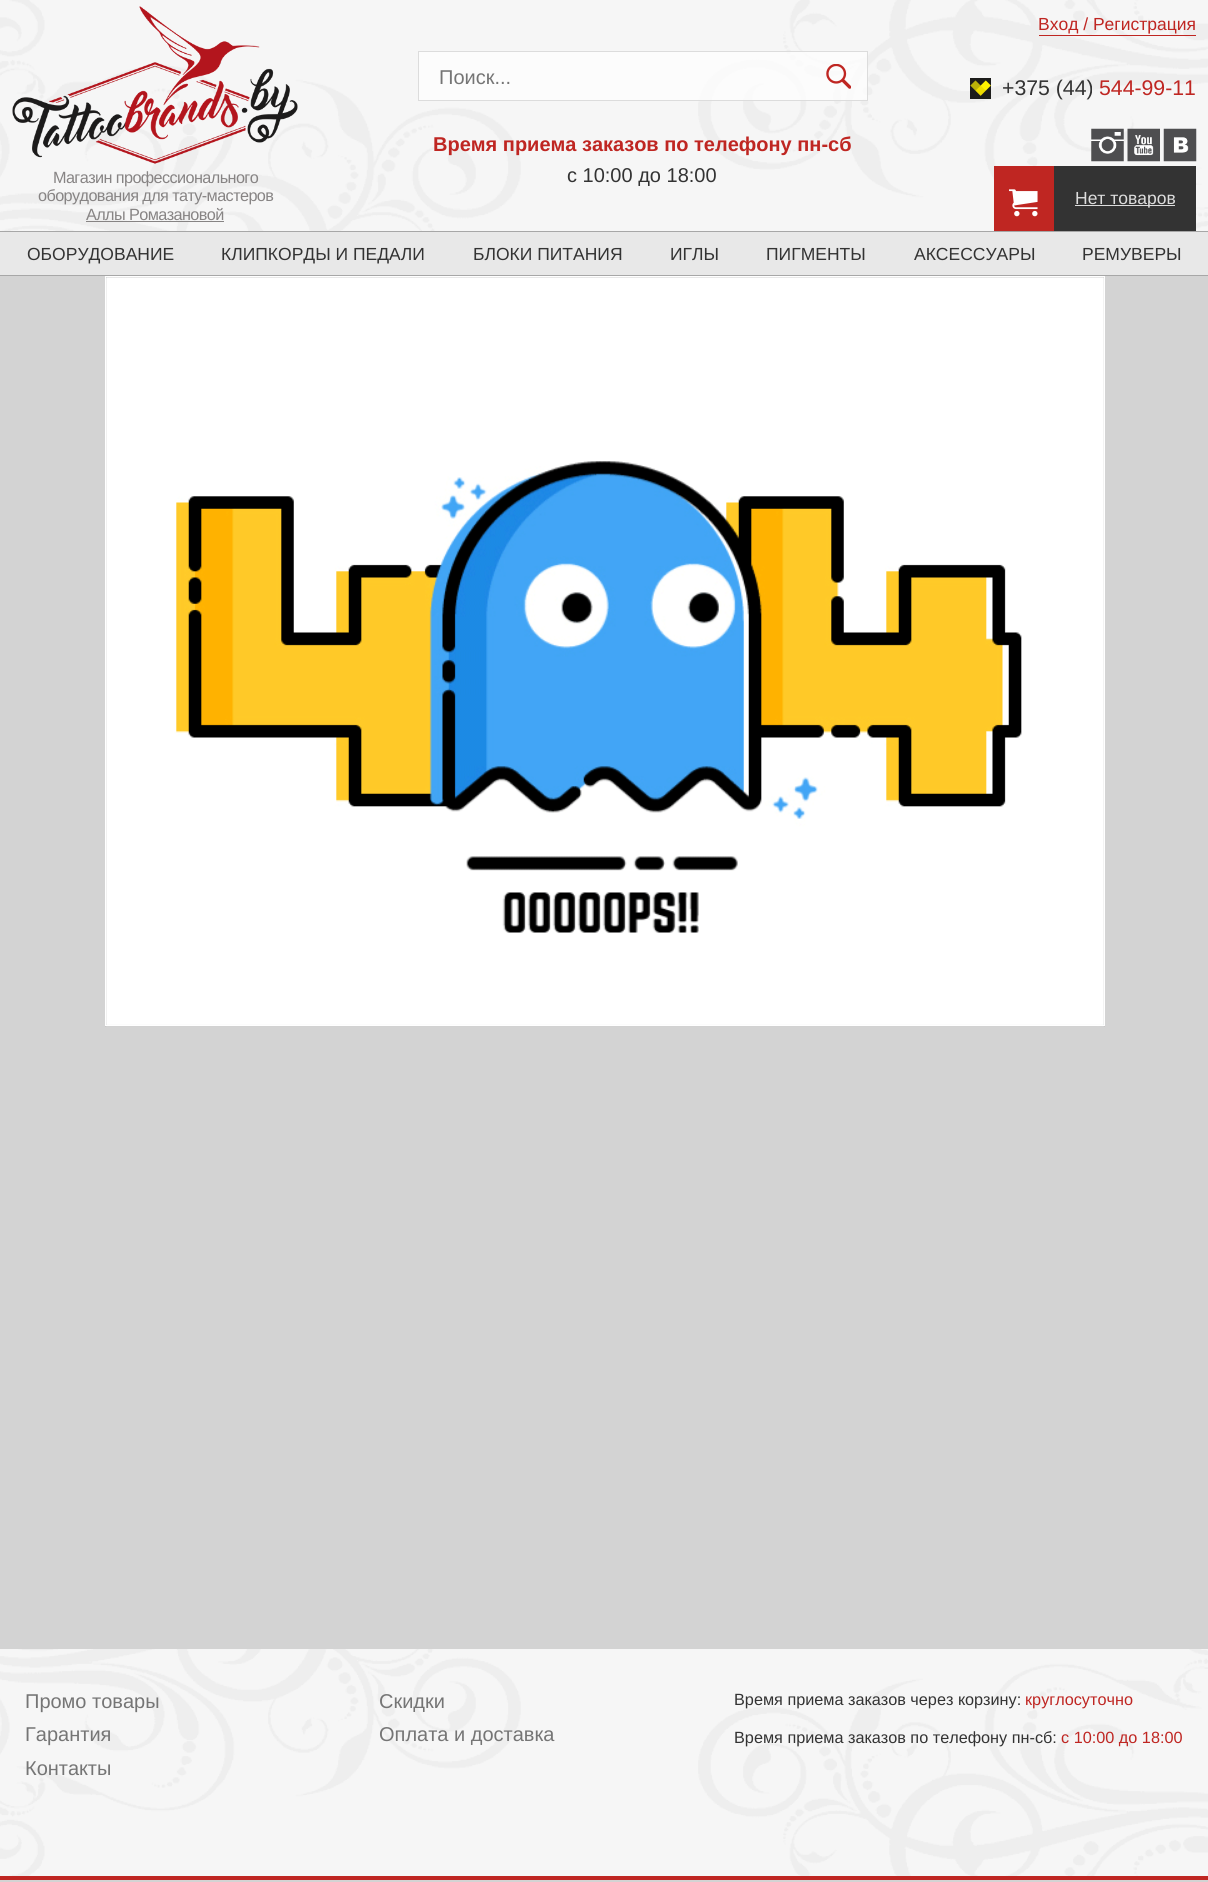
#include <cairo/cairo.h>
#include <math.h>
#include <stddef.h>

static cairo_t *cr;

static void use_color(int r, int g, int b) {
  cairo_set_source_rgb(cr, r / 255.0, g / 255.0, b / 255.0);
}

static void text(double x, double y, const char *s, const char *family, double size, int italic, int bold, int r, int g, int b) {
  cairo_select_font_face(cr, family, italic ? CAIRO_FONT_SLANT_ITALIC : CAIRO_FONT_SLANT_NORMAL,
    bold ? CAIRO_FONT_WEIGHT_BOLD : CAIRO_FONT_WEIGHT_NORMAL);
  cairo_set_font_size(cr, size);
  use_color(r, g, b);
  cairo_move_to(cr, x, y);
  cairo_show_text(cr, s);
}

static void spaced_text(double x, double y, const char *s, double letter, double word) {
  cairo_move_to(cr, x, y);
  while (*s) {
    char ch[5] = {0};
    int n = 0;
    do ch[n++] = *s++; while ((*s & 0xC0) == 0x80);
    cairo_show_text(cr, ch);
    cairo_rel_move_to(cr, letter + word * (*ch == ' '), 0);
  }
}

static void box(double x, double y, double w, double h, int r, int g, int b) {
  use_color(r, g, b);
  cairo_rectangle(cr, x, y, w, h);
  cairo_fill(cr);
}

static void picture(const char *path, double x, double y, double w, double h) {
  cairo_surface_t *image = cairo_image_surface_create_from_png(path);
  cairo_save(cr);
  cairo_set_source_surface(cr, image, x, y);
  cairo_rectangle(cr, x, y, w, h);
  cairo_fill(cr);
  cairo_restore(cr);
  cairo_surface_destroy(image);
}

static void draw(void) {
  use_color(211, 211, 211);
  cairo_paint(cr);
  box(0, 0, 1208, 231, 246, 246, 246);
  picture("img_01.png", 0, 0, 1208, 231);
  cairo_set_source_rgba(cr, 1, 1, 1, 0.7);
  cairo_rectangle(cr, 418.5, 51.5, 449, 49);
  cairo_fill_preserve(cr);
  use_color(220, 220, 220);
  cairo_set_line_width(cr, 1);
  cairo_stroke(cr);
  picture("img_02.png", 826, 64, 25, 25);
  box(1039, 35, 157, 1, 191, 38, 34);
  picture("img_03.png", 970, 78, 21, 21);
  picture("img_04.png", 1091, 128, 33, 34);
  picture("img_05.png", 1127, 128, 33, 34);
  picture("img_06.png", 1163, 128, 34, 34);
  box(1054, 166, 142, 65, 51, 51, 51);
  box(994, 166, 60, 65, 191, 38, 34);
  picture("img_07.png", 1009, 189, 29, 28);
  box(1075, 205, 100, 1, 221, 221, 221);
  picture("img_08.png", 12, 6, 286, 158);
  box(86, 221, 138, 1, 135, 132, 132);
  box(0, 232, 1208, 43, 232, 232, 232);
  box(0, 231, 1208, 1, 167, 167, 167);
  box(0, 275, 1208, 1, 167, 167, 167);
  picture("img_09.png", 105, 277, 1000, 750);
  cairo_rectangle(cr, 105.5, 276.5, 999, 749);
  use_color(255, 255, 255);
  cairo_stroke(cr);
  box(0, 1649, 1208, 227, 246, 246, 246);
  box(0, 1876, 1208, 4, 191, 38, 34);
  picture("img_10.png", 0, 1649, 1208, 227);
  text(439, 84, "Поиск...", "Liberation Sans", 20, 0, 0, 117, 117, 117);
  text(433, 151, "Время приема заказов по телефону пн-сб", "Liberation Sans", 20, 0, 1, 191, 38, 34);
  text(567, 182, "с 10:00 до 18:00", "Liberation Sans", 20, 0, 0, 51, 51, 51);
  text(1038, 30, "Вход / Регистрация", "Liberation Sans", 17.5, 0, 0, 191, 38, 34);
  text(1002, 95, "+375 (44)", "Liberation Sans", 21.25, 0, 0, 51, 51, 51);
  text(1099, 95, "544-99-11", "Liberation Sans", 21.25, 0, 0, 191, 38, 34);
  text(1075, 204, "Нет товаров", "Liberation Sans", 17.5, 0, 0, 221, 221, 221);
  cairo_set_font_size(cr, 16.25);
  use_color(135, 132, 132);
  spaced_text(53, 183, "Магазин профессионального", -0.6, 0);
  spaced_text(38, 201, "оборудования для тату-мастеров", -0.6, 0);
  spaced_text(86, 220, "Аллы Ромазановой", -0.6, 0);
  text(27, 260, "ОБОРУДОВАНИЕ", "Liberation Sans", 17.5, 0, 0, 51, 51, 51);
  text(221, 260, "КЛИПКОРДЫ И ПЕДАЛИ", "Liberation Sans", 17.5, 0, 0, 51, 51, 51);
  text(473, 260, "БЛОКИ ПИТАНИЯ", "Liberation Sans", 17.5, 0, 0, 51, 51, 51);
  text(670, 260, "ИГЛЫ", "Liberation Sans", 17.5, 0, 0, 51, 51, 51);
  text(766, 260, "ПИГМЕНТЫ", "Liberation Sans", 17.5, 0, 0, 51, 51, 51);
  text(914, 260, "АКСЕССУАРЫ", "Liberation Sans", 17.5, 0, 0, 51, 51, 51);
  text(1082, 260, "РЕМУВЕРЫ", "Liberation Sans", 17.5, 0, 0, 51, 51, 51);
  text(25, 1708, "Промо товары", "Liberation Sans", 20, 0, 0, 117, 117, 117);
  text(25, 1741, "Гарантия", "Liberation Sans", 20, 0, 0, 117, 117, 117);
  text(25, 1775, "Контакты", "Liberation Sans", 20, 0, 0, 117, 117, 117);
  text(379, 1708, "Скидки", "Liberation Sans", 20, 0, 0, 117, 117, 117);
  text(379, 1741, "Оплата и доставка", "Liberation Sans", 20, 0, 0, 117, 117, 117);
  text(734, 1705, "Время приема заказов через корзину:", "Liberation Sans", 16.25, 0, 0, 51, 51, 51);
  text(1025, 1705, "круглосуточно", "Liberation Sans", 16.25, 0, 0, 191, 38, 34);
  text(734, 1743, "Время приема заказов по телефону пн-сб:", "Liberation Sans", 16.25, 0, 0, 51, 51, 51);
  text(1061, 1743, "с 10:00 до 18:00", "Liberation Sans", 16.25, 0, 0, 191, 38, 34);
}

int main(void) {
  cairo_surface_t *surface = cairo_image_surface_create(CAIRO_FORMAT_RGB24, 1208, 1882);
  cr = cairo_create(surface);
  cairo_font_options_t *options = cairo_font_options_create();
  cairo_font_options_set_hint_metrics(options, CAIRO_HINT_METRICS_OFF);
  cairo_font_options_set_hint_style(options, CAIRO_HINT_STYLE_NONE);
  cairo_set_font_options(cr, options);
  cairo_set_miter_limit(cr, 4);
  draw();
  cairo_surface_write_to_png(surface, "out.png");
  cairo_font_options_destroy(options);
  cairo_destroy(cr);
  cairo_surface_destroy(surface);
  return 0;
}
